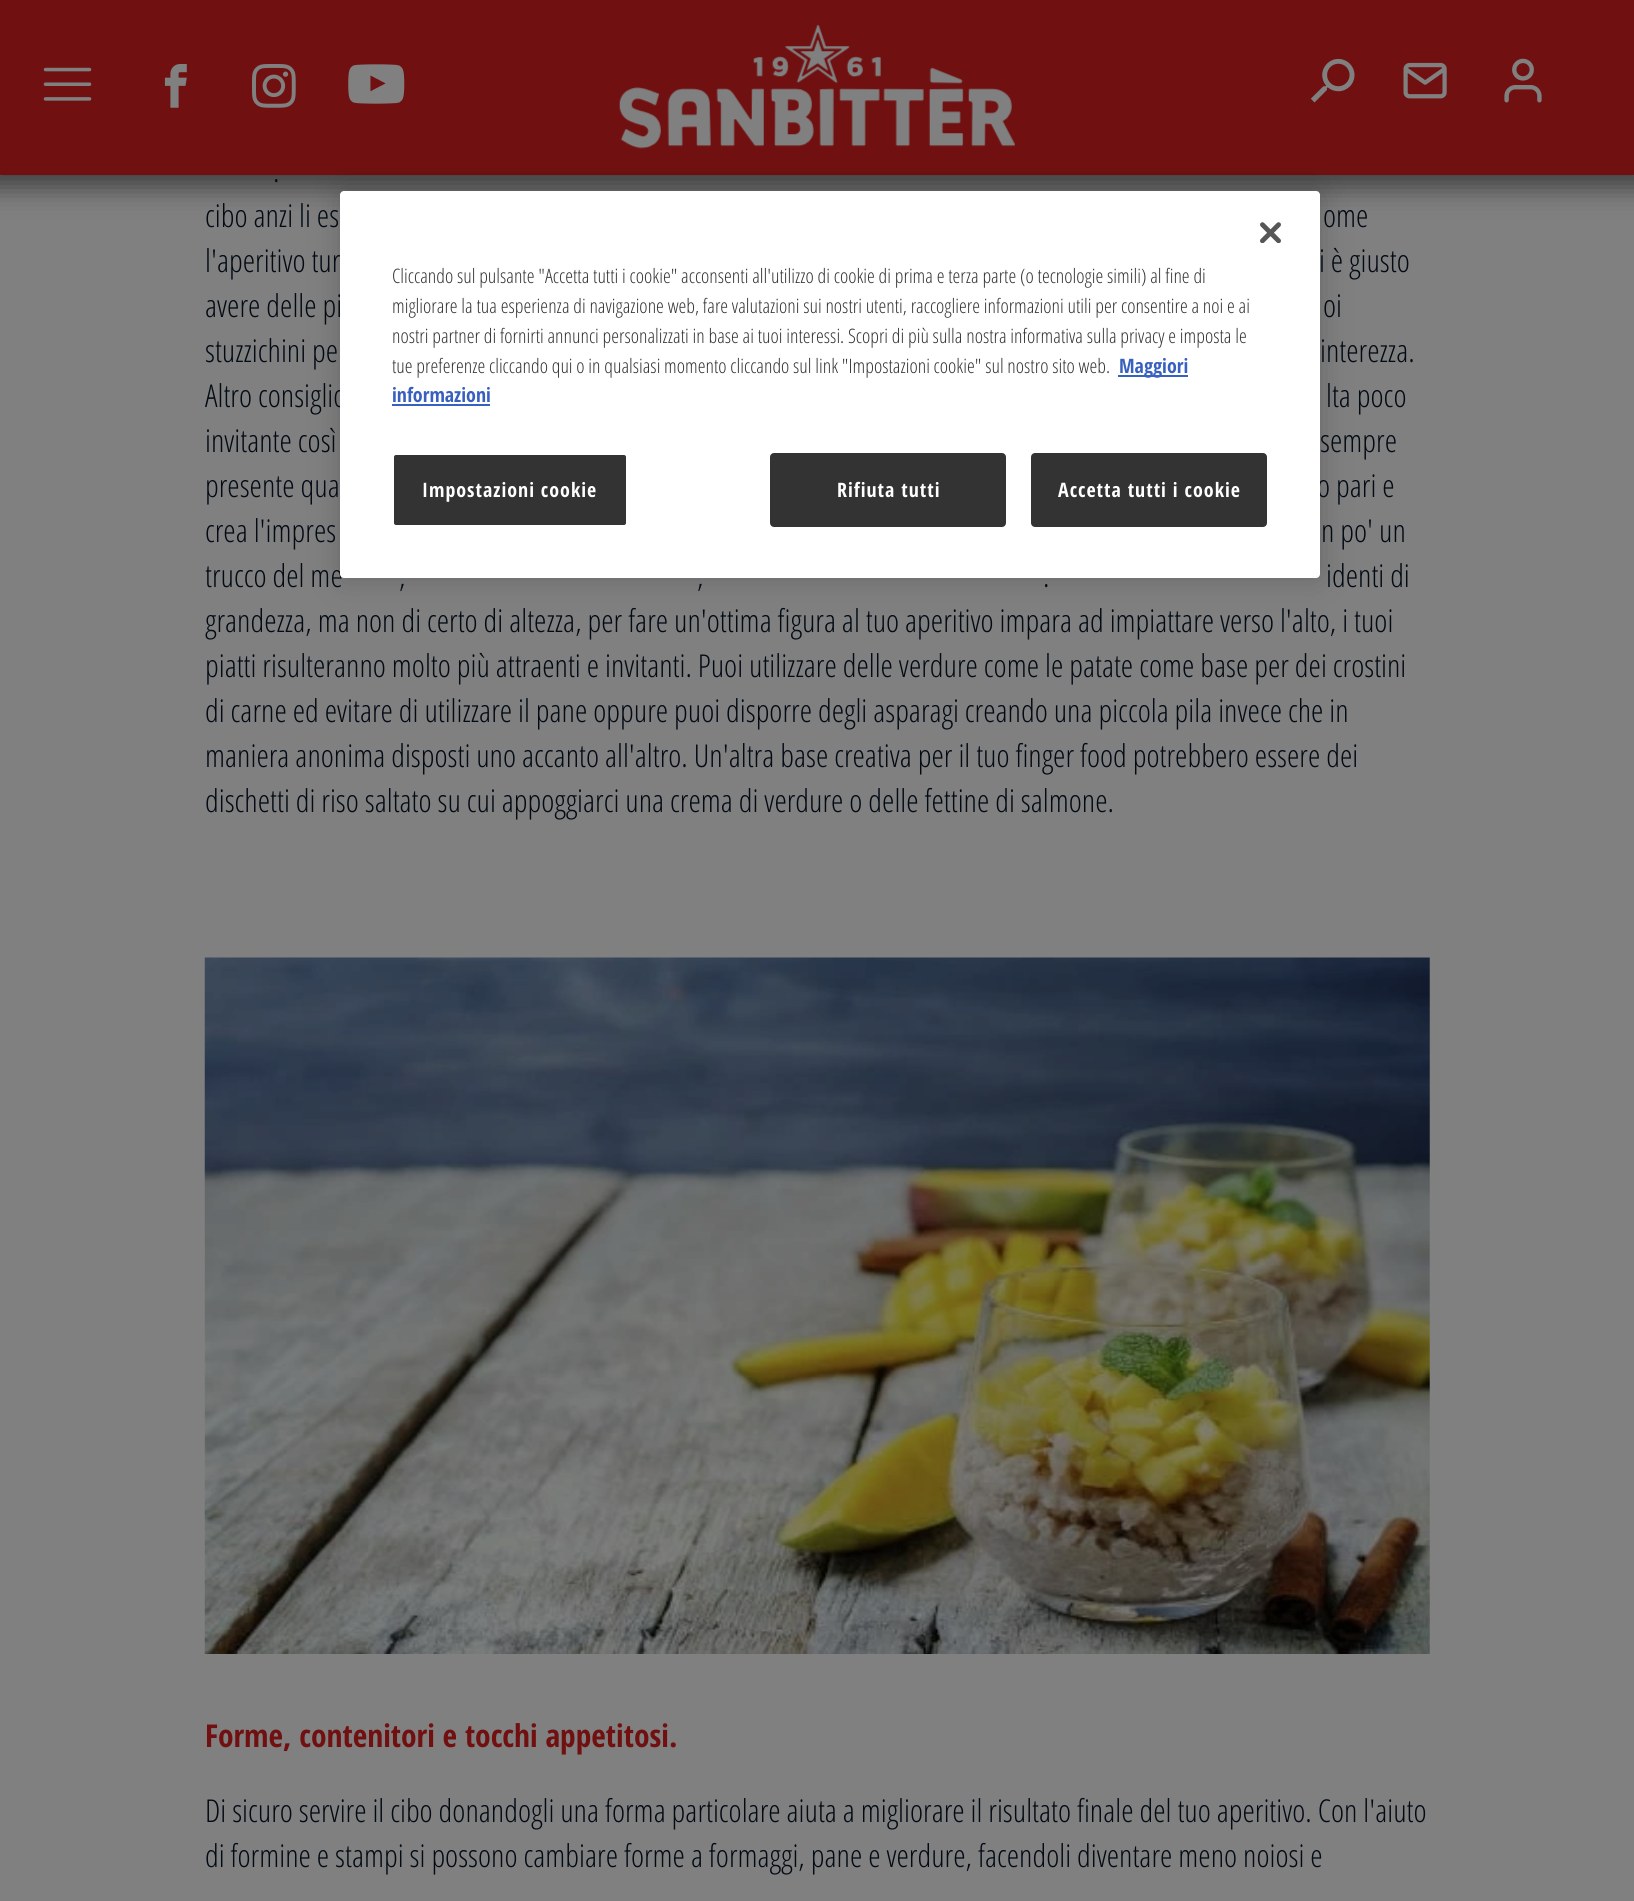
#include <cairo/cairo.h>
#include <math.h>
#include <stddef.h>

static cairo_t *cr;

static void use_color(int r, int g, int b) {
  cairo_set_source_rgb(cr, r / 255.0, g / 255.0, b / 255.0);
}

static void text(double x, double y, const char *s, const char *family, double size, int italic, int bold, int r, int g, int b) {
  cairo_select_font_face(cr, family, italic ? CAIRO_FONT_SLANT_ITALIC : CAIRO_FONT_SLANT_NORMAL,
    bold ? CAIRO_FONT_WEIGHT_BOLD : CAIRO_FONT_WEIGHT_NORMAL);
  cairo_set_font_size(cr, size);
  use_color(r, g, b);
  cairo_move_to(cr, x, y);
  cairo_show_text(cr, s);
}

static void spaced_text(double x, double y, const char *s, double letter, double word) {
  cairo_move_to(cr, x, y);
  while (*s) {
    char ch[5] = {0};
    int n = 0;
    do ch[n++] = *s++; while ((*s & 0xC0) == 0x80);
    cairo_show_text(cr, ch);
    cairo_rel_move_to(cr, letter + word * (*ch == ' '), 0);
  }
}

static void box(double x, double y, double w, double h, int r, int g, int b) {
  use_color(r, g, b);
  cairo_rectangle(cr, x, y, w, h);
  cairo_fill(cr);
}

static void round_rect(double x, double y, double w, double h, double r) {
  cairo_new_sub_path(cr);
  cairo_arc(cr, x + w - r, y + h - r, r, 0, M_PI / 2);
  cairo_arc(cr, x + r, y + h - r, r, M_PI / 2, M_PI);
  cairo_arc(cr, x + r, y + r, r, M_PI, 1.5 * M_PI);
  cairo_arc(cr, x + w - r, y + r, r, 1.5 * M_PI, 2 * M_PI);
  cairo_close_path(cr);
}

static void shadow(double x, double y, double w, double h, double r, double blur, double alpha) {
  cairo_push_group_with_content(cr, CAIRO_CONTENT_ALPHA);
  cairo_set_operator(cr, CAIRO_OPERATOR_SOURCE);
  for (int i = 15; i >= -15 && fmin(w, h) + blur * i / 3 > 0; i -= 2) {
    double e = blur * i / 6;
    cairo_set_source_rgba(cr, 0, 0, 0, alpha * erfc((i - 1) / 8.5) / 2);
    round_rect(x - e, y - e, w + 2 * e, h + 2 * e, fmax(0, fmin(r + e + blur * .6, fmin(w, h) / 2 + e)));
    cairo_fill(cr);
  }
  cairo_pattern_t *soft = cairo_pop_group(cr);
  cairo_mask(cr, soft);
  cairo_pattern_destroy(soft);
}

static void picture(const char *path, double x, double y, double w, double h) {
  cairo_surface_t *image = cairo_image_surface_create_from_png(path);
  cairo_save(cr);
  cairo_set_source_surface(cr, image, x, y);
  cairo_rectangle(cr, x, y, w, h);
  cairo_fill(cr);
  cairo_restore(cr);
  cairo_surface_destroy(image);
}

static void draw(void) {
  use_color(128, 128, 128);
  cairo_paint(cr);
  use_color(0, 0, 0);
  shadow(-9, -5, 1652, 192, 0, 13, 0.51);
  box(0, 0, 1634, 175, 113, 16, 17);
  picture("img_01.png", 43, 67, 49, 34);
  picture("img_02.png", 164, 64, 23, 44);
  picture("img_03.png", 252, 64, 44, 44);
  picture("img_04.png", 348, 64, 57, 40);
  picture("img_05.png", 619, 24, 396, 125);
  picture("img_06.png", 1310, 58, 45, 45);
  picture("img_07.png", 1403, 62, 44, 37);
  picture("img_08.png", 1504, 58, 38, 45);
  picture("img_09.png", 204, 957, 1226, 697);
  use_color(0, 0, 0);
  shadow(340, 191, 980, 387, 4, 16, 0.2);
  text(273, 182, ".", "Open Sans Condensed Light", 31.5, 0, 0, 2, 10, 20);
  text(205, 227, "cibo anzi li es", "Open Sans Condensed Light", 31.5, 0, 0, 2, 10, 20);
  text(1323, 227, "ome", "Open Sans Condensed Light", 31.5, 0, 0, 2, 10, 20);
  text(205, 272, "l'aperitivo tur", "Open Sans Condensed Light", 31.5, 0, 0, 2, 10, 20);
  text(1319, 272, "i è giusto", "Open Sans Condensed Light", 31.5, 0, 0, 2, 10, 20);
  text(205, 317, "avere delle pi", "Open Sans Condensed Light", 31.5, 0, 0, 2, 10, 20);
  text(1323, 317, "oi", "Open Sans Condensed Light", 31.5, 0, 0, 2, 10, 20);
  text(205, 362, "stuzzichini pe", "Open Sans Condensed Light", 31.5, 0, 0, 2, 10, 20);
  text(1320, 362, "interezza.", "Open Sans Condensed Light", 31.5, 0, 0, 2, 10, 20);
  text(205, 407, "Altro consiglio", "Open Sans Condensed Light", 31.5, 0, 0, 2, 10, 20);
  text(1326, 407, "lta poco", "Open Sans Condensed Light", 31.5, 0, 0, 2, 10, 20);
  text(205, 452, "invitante così", "Open Sans Condensed Light", 31.5, 0, 0, 2, 10, 20);
  text(1320, 452, "sempre", "Open Sans Condensed Light", 31.5, 0, 0, 2, 10, 20);
  text(205, 497, "presente qua", "Open Sans Condensed Light", 31.5, 0, 0, 2, 10, 20);
  text(1317, 497, "o pari e", "Open Sans Condensed Light", 31.5, 0, 0, 2, 10, 20);
  text(205, 542, "crea l'impres", "Open Sans Condensed Light", 31.5, 0, 0, 2, 10, 20);
  text(1321, 542, "n po' un", "Open Sans Condensed Light", 31.5, 0, 0, 2, 10, 20);
  text(205, 587, "trucco del me", "Open Sans Condensed Light", 31.5, 0, 0, 2, 10, 20);
  text(399, 587, ",", "Open Sans Condensed Light", 31.5, 0, 0, 2, 10, 20);
  text(697, 587, ",", "Open Sans Condensed Light", 31.5, 0, 0, 2, 10, 20);
  text(1043, 587, ".", "Open Sans Condensed Light", 31.5, 0, 0, 2, 10, 20);
  text(1326, 587, "identi di", "Open Sans Condensed Light", 31.5, 0, 0, 2, 10, 20);
  text(205, 632, "grandezza, ma non di certo di altezza, per fare un'ottima figura al tuo aperitivo impara ad impiattare verso l'alto, i tuoi", "Open Sans Condensed Light", 31.5, 0, 0, 2, 10, 20);
  text(205, 677, "piatti risulteranno molto più attraenti e invitanti. Puoi utilizzare delle verdure come le patate come base per dei crostini", "Open Sans Condensed Light", 31.5, 0, 0, 2, 10, 20);
  text(205, 722, "di carne ed evitare di utilizzare il pane oppure puoi disporre degli asparagi creando una piccola pila invece che in", "Open Sans Condensed Light", 31.5, 0, 0, 2, 10, 20);
  text(205, 767, "maniera anonima disposti uno accanto all'altro. Un'altra base creativa per il tuo finger food potrebbero essere dei", "Open Sans Condensed Light", 31.5, 0, 0, 2, 10, 20);
  text(205, 812, "dischetti di riso saltato su cui appoggiarci una crema di verdure o delle fettine di salmone.", "Open Sans Condensed Light", 31.5, 0, 0, 2, 10, 20);
  text(205, 1747, "Forme, contenitori e tocchi appetitosi.", "Open Sans Condensed", 31.5, 0, 1, 113, 16, 17);
  text(205, 1822, "Di sicuro servire il cibo donandogli una forma particolare aiuta a migliorare il risultato finale del tuo aperitivo. Con l'aiuto", "Open Sans Condensed Light", 31.5, 0, 0, 2, 10, 20);
  text(205, 1867, "di formine e stampi si possono cambiare forme a formaggi, pane e verdure, facendoli diventare meno noiosi e", "Open Sans Condensed Light", 31.5, 0, 0, 2, 10, 20);
  use_color(255, 255, 255);
  round_rect(340, 191, 980, 387, 4);
  cairo_fill(cr);
  picture("img_10.png", 1260, 222, 21, 21);
  text(392, 283, "Cliccando sul pulsante \"Accetta tutti i cookie\" acconsenti all'utilizzo di cookie di prima e terza parte (o tecnologie simili) al fine di", "Open Sans Condensed Light", 19.9, 0, 0, 51, 51, 51);
  text(392, 313, "migliorare la tua esperienza di navigazione web, fare valutazioni sui nostri utenti, raccogliere informazioni utili per consentire a noi e ai", "Open Sans Condensed Light", 19.9, 0, 0, 51, 51, 51);
  text(392, 343, "nostri partner di fornirti annunci personalizzati in base ai tuoi interessi. Scopri di più sulla nostra informativa sulla privacy e imposta le", "Open Sans Condensed Light", 19.9, 0, 0, 51, 51, 51);
  text(392, 373, "tue preferenze cliccando qui o in qualsiasi momento cliccando sul link \"Impostazioni cookie\" sul nostro sito web.", "Open Sans Condensed Light", 19.9, 0, 0, 51, 51, 51);
  box(1118, 375, 70, 2, 56, 96, 190);
  text(1119, 373, "Maggiori", "Open Sans Condensed", 19.9, 0, 1, 56, 96, 190);
  text(392, 402, "informazioni", "Open Sans Condensed", 19.9, 0, 1, 56, 96, 190);
  box(392, 404, 98, 2, 56, 96, 190);
  use_color(51, 51, 51);
  round_rect(393, 454, 234, 72, 3);
  cairo_fill_preserve(cr);
  use_color(255, 255, 255);
  cairo_stroke(cr);
  spaced_text(422, 497, "Impostazioni cookie", 1, 0);
  use_color(51, 51, 51);
  round_rect(771, 454, 234, 72, 3);
  cairo_fill_preserve(cr);
  cairo_stroke(cr);
  use_color(255, 255, 255);
  spaced_text(837, 497, "Rifiuta tutti", 1, 0);
  use_color(51, 51, 51);
  round_rect(1032, 454, 234, 72, 3);
  cairo_fill_preserve(cr);
  cairo_stroke(cr);
  use_color(255, 255, 255);
  spaced_text(1058, 497, "Accetta tutti i cookie", 1, 0);
}

int main(void) {
  cairo_surface_t *surface = cairo_image_surface_create(CAIRO_FORMAT_RGB24, 1634, 1901);
  cr = cairo_create(surface);
  cairo_font_options_t *options = cairo_font_options_create();
  cairo_font_options_set_hint_metrics(options, CAIRO_HINT_METRICS_OFF);
  cairo_font_options_set_hint_style(options, CAIRO_HINT_STYLE_NONE);
  cairo_set_font_options(cr, options);
  cairo_set_miter_limit(cr, 4);
  draw();
  cairo_surface_write_to_png(surface, "out.png");
  cairo_font_options_destroy(options);
  cairo_destroy(cr);
  cairo_surface_destroy(surface);
  return 0;
}
